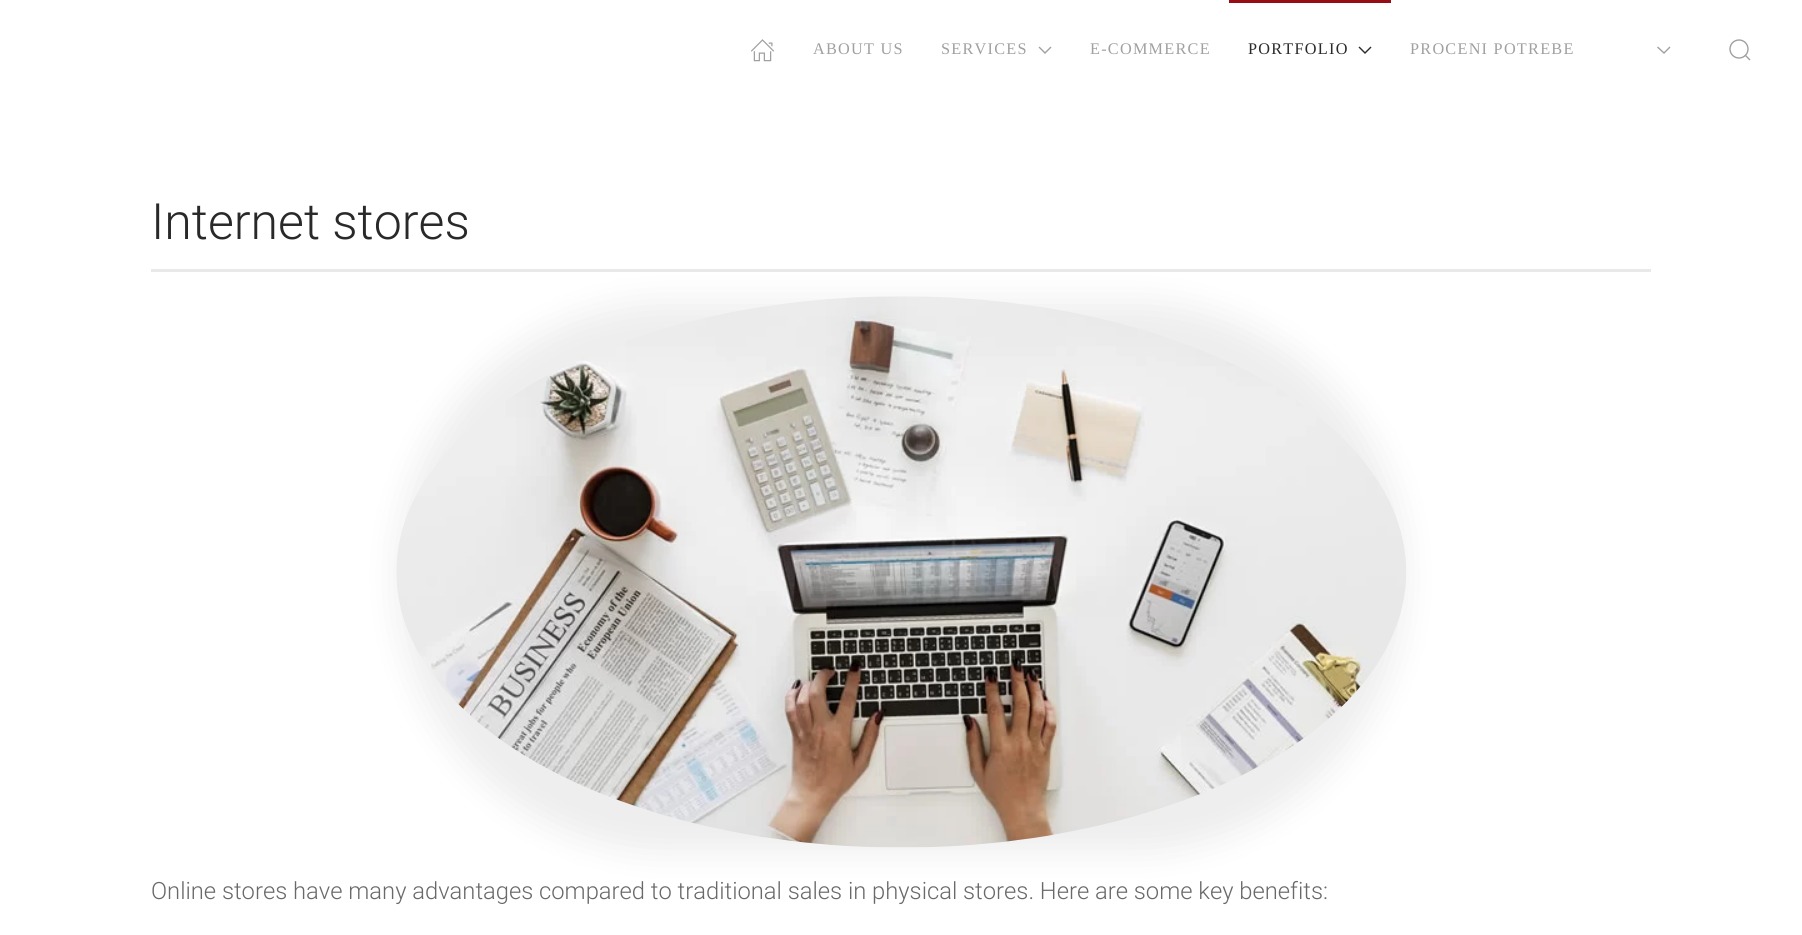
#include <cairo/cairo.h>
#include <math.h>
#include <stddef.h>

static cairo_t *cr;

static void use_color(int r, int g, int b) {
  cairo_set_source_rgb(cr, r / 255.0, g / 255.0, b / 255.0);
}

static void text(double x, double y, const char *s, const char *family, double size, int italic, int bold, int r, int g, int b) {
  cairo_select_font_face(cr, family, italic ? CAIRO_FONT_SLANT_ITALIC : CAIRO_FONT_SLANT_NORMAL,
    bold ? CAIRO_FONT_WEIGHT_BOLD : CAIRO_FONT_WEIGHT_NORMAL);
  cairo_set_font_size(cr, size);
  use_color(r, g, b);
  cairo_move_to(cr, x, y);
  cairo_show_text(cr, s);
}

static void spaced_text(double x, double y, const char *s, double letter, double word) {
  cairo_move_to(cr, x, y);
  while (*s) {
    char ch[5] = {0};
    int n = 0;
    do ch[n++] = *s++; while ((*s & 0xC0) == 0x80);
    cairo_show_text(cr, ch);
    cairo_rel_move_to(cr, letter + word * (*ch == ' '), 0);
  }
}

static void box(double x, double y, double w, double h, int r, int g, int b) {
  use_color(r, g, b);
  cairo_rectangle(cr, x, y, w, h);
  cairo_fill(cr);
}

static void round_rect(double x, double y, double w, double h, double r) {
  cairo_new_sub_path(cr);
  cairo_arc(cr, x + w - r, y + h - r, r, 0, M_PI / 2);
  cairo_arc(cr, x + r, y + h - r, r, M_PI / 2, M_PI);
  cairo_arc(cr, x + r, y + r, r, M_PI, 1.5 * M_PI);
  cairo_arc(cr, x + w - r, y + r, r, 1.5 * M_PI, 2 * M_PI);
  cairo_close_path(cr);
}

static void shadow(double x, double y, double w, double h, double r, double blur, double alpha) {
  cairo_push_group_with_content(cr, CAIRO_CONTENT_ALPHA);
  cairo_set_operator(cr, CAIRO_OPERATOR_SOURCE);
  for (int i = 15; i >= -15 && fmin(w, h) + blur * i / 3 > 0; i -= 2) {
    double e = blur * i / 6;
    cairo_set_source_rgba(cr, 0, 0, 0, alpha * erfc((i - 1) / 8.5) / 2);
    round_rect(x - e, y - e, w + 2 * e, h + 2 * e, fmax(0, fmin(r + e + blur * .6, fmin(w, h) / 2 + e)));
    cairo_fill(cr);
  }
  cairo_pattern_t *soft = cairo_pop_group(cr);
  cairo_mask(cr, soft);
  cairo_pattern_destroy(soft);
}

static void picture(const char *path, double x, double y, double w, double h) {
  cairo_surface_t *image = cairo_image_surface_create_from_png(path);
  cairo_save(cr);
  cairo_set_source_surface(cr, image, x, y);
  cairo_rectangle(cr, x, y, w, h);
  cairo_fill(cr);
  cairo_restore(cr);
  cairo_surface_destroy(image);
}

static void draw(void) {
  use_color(255, 255, 255);
  cairo_paint(cr);
  picture("img_01.png", 751, 39, 23, 23);
  cairo_new_path(cr);
  cairo_move_to(cr, 1039, 47);
  cairo_line_to(cr, 1045, 53);
  cairo_line_to(cr, 1051, 47);
  use_color(160, 160, 160);
  cairo_set_line_width(cr, 1.4);
  cairo_stroke(cr);
  box(1229, 0, 162, 3, 150, 14, 19);
  cairo_new_path(cr);
  cairo_move_to(cr, 1359, 47);
  cairo_line_to(cr, 1365, 53);
  cairo_line_to(cr, 1371, 47);
  use_color(41, 41, 41);
  cairo_stroke(cr);
  cairo_new_path(cr);
  cairo_move_to(cr, 1657.5, 47);
  cairo_line_to(cr, 1664, 53);
  cairo_line_to(cr, 1670, 47);
  use_color(160, 160, 160);
  cairo_stroke(cr);
  cairo_arc(cr, 1739, 49, 9, 0, 2 * M_PI);
  cairo_stroke(cr);
  cairo_new_path(cr);
  cairo_move_to(cr, 1745, 55);
  cairo_line_to(cr, 1750, 60);
  cairo_close_path(cr);
  cairo_stroke(cr);
  box(151, 269, 1500, 3, 233, 233, 233);
  use_color(0, 0, 0);
  shadow(396, 301, 1010, 552, 276, 17.5, 0.07);
  picture("img_02.png", 396, 296, 1010, 552);
  cairo_select_font_face(cr, "Liberation Serif", CAIRO_FONT_SLANT_NORMAL, CAIRO_FONT_WEIGHT_NORMAL);
  cairo_set_font_size(cr, 16.25);
  use_color(160, 160, 160);
  spaced_text(813, 54, "ABOUT US", 1.25, 0);
  spaced_text(941, 54, "SERVICES", 1.25, 0);
  spaced_text(1090, 54, "E-COMMERCE", 1.25, 0);
  use_color(41, 41, 41);
  spaced_text(1248, 54, "PORTFOLIO", 1.25, 0);
  use_color(160, 160, 160);
  spaced_text(1410, 54, "PROCENI POTREBE", 1.25, 0);
  text(151, 239, "Internet stores", "Roboto Light", 50, 0, 0, 41, 41, 41);
  text(151, 899, "Online stores have many advantages compared to traditional sales in physical stores. Here are some key benefits:", "Roboto Light", 23.75, 0, 0, 105, 105, 105);
}

int main(void) {
  cairo_surface_t *surface = cairo_image_surface_create(CAIRO_FORMAT_RGB24, 1802, 935);
  cr = cairo_create(surface);
  cairo_font_options_t *options = cairo_font_options_create();
  cairo_font_options_set_hint_metrics(options, CAIRO_HINT_METRICS_OFF);
  cairo_font_options_set_hint_style(options, CAIRO_HINT_STYLE_NONE);
  cairo_set_font_options(cr, options);
  cairo_set_miter_limit(cr, 4);
  draw();
  cairo_surface_write_to_png(surface, "out.png");
  cairo_font_options_destroy(options);
  cairo_destroy(cr);
  cairo_surface_destroy(surface);
  return 0;
}
